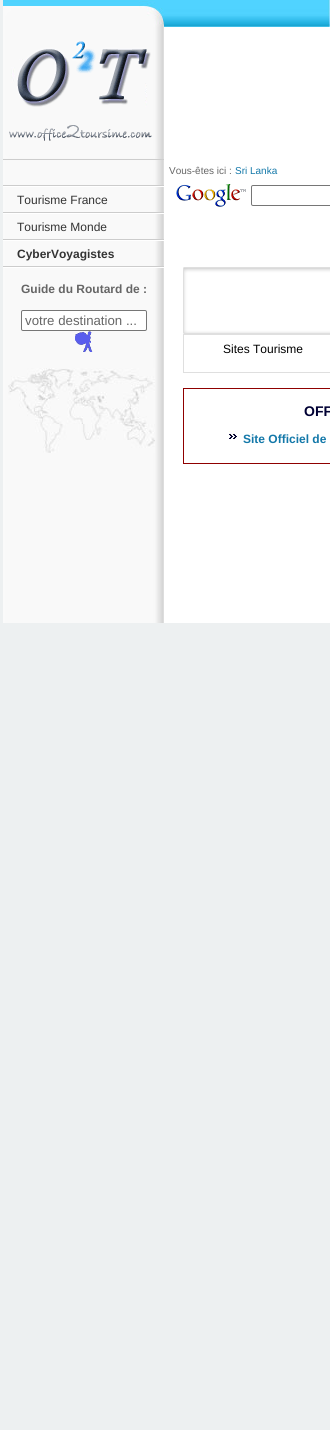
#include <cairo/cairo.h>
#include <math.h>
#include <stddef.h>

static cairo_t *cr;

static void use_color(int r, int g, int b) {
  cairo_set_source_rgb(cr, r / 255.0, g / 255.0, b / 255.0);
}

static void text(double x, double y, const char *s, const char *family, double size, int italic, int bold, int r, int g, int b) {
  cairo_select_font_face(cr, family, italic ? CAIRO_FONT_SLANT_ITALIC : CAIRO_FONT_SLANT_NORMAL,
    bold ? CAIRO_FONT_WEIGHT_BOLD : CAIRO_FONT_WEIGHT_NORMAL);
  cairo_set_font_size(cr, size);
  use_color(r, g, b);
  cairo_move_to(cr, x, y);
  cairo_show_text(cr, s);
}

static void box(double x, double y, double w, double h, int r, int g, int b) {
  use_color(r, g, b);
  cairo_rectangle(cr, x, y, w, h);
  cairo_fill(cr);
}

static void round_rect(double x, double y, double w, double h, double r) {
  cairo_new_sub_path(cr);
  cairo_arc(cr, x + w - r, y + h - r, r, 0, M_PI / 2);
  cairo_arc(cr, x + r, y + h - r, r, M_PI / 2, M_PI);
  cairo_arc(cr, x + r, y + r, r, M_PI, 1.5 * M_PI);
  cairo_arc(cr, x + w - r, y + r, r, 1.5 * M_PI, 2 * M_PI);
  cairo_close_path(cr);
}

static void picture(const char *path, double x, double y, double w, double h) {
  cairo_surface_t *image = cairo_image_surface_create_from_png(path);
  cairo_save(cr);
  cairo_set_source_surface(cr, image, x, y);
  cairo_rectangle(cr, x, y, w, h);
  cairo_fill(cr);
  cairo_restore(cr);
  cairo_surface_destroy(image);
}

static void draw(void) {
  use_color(237, 240, 241);
  cairo_paint(cr);
  picture("img_01.png", 3, 0, 161, 27);
  picture("img_02.png", 164, 0, 164, 27);
  picture("img_03.png", 328, 0, 2, 27);
  picture("img_04.png", 3, 27, 161, 14);
  picture("img_05.png", 3, 41, 161, 119);
  box(164, 27, 166, 596, 255, 255, 255);
  picture("img_06.png", 3, 160, 161, 463);
  picture("img_07.png", 3, 185, 161, 2);
  picture("img_07.png", 3, 212, 161, 2);
  picture("img_07.png", 3, 239, 161, 2);
  picture("img_07.png", 3, 266, 161, 2);
  round_rect(21.5, 310.5, 125, 20, 1.5);
  cairo_fill_preserve(cr);
  use_color(118, 118, 118);
  cairo_set_line_width(cr, 1);
  cairo_stroke(cr);
  picture("img_08.png", 75, 331, 18, 21);
  picture("img_09.png", 8, 368, 147, 85);
  picture("img_10.png", 176, 184, 70, 23);
  round_rect(251.5, 185.5, 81, 20, 1.5);
  cairo_stroke(cr);
  picture("img_11.png", 183, 267, 147, 67);
  cairo_rectangle(cr, 183.5, 334.5, 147, 38);
  use_color(223, 223, 223);
  cairo_stroke(cr);
  cairo_rectangle(cr, 183.5, 388.5, 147, 75);
  use_color(143, 0, 0);
  cairo_stroke(cr);
  picture("img_12.png", 229, 431, 8, 8);
  text(17, 204, "Tourisme France", "Liberation Sans", 12, 0, 0, 51, 51, 51);
  text(17, 231, "Tourisme Monde", "Liberation Sans", 12, 0, 0, 51, 51, 51);
  text(17, 258, "CyberVoyagistes", "Liberation Sans", 12, 0, 1, 51, 51, 51);
  text(21, 293, "Guide du Routard de :", "Liberation Sans", 12, 0, 1, 102, 102, 102);
  text(25, 325, "votre destination ...", "Liberation Sans", 13.25, 0, 0, 102, 102, 102);
  text(169, 174, "Vous-êtes ici :", "Liberation Sans", 10, 0, 0, 102, 102, 102);
  text(235, 174, "Sri Lanka", "Liberation Sans", 10, 0, 0, 19, 120, 169);
  text(223, 353, "Sites Tourisme", "Liberation Sans", 12, 0, 0, 0, 0, 0);
  text(304, 416, "OFF", "Liberation Sans", 14, 0, 1, 0, 0, 51);
  text(243, 443, "Site Officiel de", "Liberation Sans", 12, 0, 1, 19, 120, 169);
}

int main(void) {
  cairo_surface_t *surface = cairo_image_surface_create(CAIRO_FORMAT_RGB24, 330, 1430);
  cr = cairo_create(surface);
  cairo_font_options_t *options = cairo_font_options_create();
  cairo_font_options_set_hint_metrics(options, CAIRO_HINT_METRICS_OFF);
  cairo_font_options_set_hint_style(options, CAIRO_HINT_STYLE_NONE);
  cairo_set_font_options(cr, options);
  cairo_set_miter_limit(cr, 4);
  draw();
  cairo_surface_write_to_png(surface, "out.png");
  cairo_font_options_destroy(options);
  cairo_destroy(cr);
  cairo_surface_destroy(surface);
  return 0;
}
